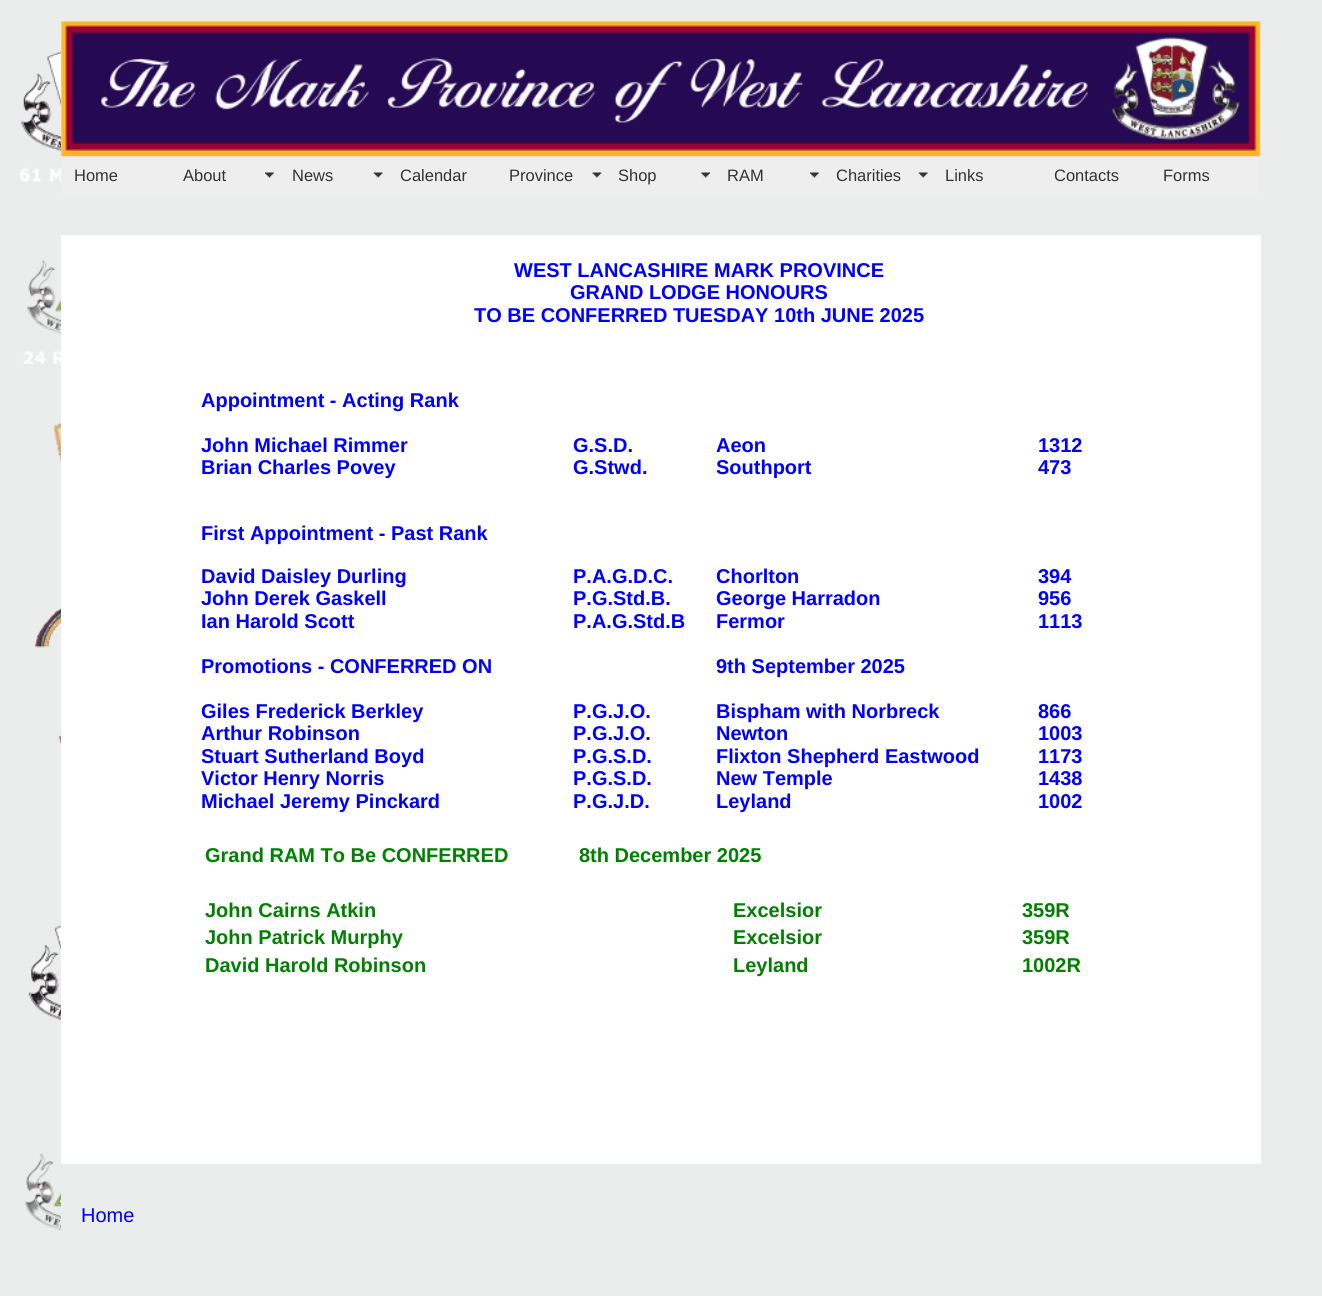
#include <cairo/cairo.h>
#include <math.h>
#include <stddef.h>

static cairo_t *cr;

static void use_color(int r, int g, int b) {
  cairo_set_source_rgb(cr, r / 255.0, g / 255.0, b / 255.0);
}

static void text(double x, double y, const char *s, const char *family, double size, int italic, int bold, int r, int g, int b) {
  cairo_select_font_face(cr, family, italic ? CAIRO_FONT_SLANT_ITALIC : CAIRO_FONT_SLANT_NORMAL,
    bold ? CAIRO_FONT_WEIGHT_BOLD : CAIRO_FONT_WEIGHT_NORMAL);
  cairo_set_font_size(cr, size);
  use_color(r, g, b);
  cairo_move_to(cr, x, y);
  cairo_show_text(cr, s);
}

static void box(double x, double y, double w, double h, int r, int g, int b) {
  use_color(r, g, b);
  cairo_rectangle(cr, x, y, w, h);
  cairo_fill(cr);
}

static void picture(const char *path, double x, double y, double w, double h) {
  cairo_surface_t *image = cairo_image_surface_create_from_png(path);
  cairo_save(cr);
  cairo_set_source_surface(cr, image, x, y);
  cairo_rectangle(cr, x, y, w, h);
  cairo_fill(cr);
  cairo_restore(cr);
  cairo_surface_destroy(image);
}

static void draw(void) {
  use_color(255, 255, 255);
  cairo_paint(cr);
  picture("img_01.png", 0, 0, 1322, 1296);
  box(61, 47, 110, 1189, 235, 236, 236);
  picture("img_02.png", 61, 21, 1200, 136);
  box(61, 158, 1198, 35, 238, 238, 238);
  picture("img_03.png", 265, 172, 9, 6);
  picture("img_04.png", 373, 172, 10, 6);
  picture("img_05.png", 592, 172, 10, 6);
  picture("img_06.png", 701, 172, 9, 6);
  picture("img_03.png", 810, 172, 9, 6);
  picture("img_04.png", 918, 172, 10, 6);
  box(61, 235, 1200, 929, 255, 255, 255);
  text(74, 181, "Home", "Liberation Sans", 16.5, 0, 0, 51, 51, 51);
  text(183, 181, "About", "Liberation Sans", 16.5, 0, 0, 51, 51, 51);
  text(292, 181, "News", "Liberation Sans", 16.5, 0, 0, 51, 51, 51);
  text(400, 181, "Calendar", "Liberation Sans", 16.5, 0, 0, 51, 51, 51);
  text(509, 181, "Province", "Liberation Sans", 16.5, 0, 0, 51, 51, 51);
  text(618, 181, "Shop", "Liberation Sans", 16.5, 0, 0, 51, 51, 51);
  text(727, 181, "RAM", "Liberation Sans", 16.5, 0, 0, 51, 51, 51);
  text(836, 181, "Charities", "Liberation Sans", 16.5, 0, 0, 51, 51, 51);
  text(945, 181, "Links", "Liberation Sans", 16.5, 0, 0, 51, 51, 51);
  text(1054, 181, "Contacts", "Liberation Sans", 16.5, 0, 0, 51, 51, 51);
  text(1163, 181, "Forms", "Liberation Sans", 16.5, 0, 0, 51, 51, 51);
  text(514, 277, "WEST LANCASHIRE MARK PROVINCE", "Liberation Sans", 20, 0, 1, 0, 0, 255);
  text(570, 299, "GRAND LODGE HONOURS", "Liberation Sans", 20, 0, 1, 0, 0, 255);
  text(474, 322, "TO BE CONFERRED TUESDAY 10th JUNE 2025", "Liberation Sans", 20, 0, 1, 0, 0, 255);
  text(201, 407, "Appointment - Acting Rank", "Liberation Sans", 20, 0, 1, 0, 0, 255);
  text(201, 452, "John Michael Rimmer", "Liberation Sans", 20, 0, 1, 0, 0, 255);
  text(573, 452, "G.S.D.", "Liberation Sans", 20, 0, 1, 0, 0, 255);
  text(716, 452, "Aeon", "Liberation Sans", 20, 0, 1, 0, 0, 255);
  text(1038, 452, "1312", "Liberation Sans", 20, 0, 1, 0, 0, 255);
  text(201, 474, "Brian Charles Povey", "Liberation Sans", 20, 0, 1, 0, 0, 255);
  text(573, 474, "G.Stwd.", "Liberation Sans", 20, 0, 1, 0, 0, 255);
  text(716, 474, "Southport", "Liberation Sans", 20, 0, 1, 0, 0, 255);
  text(1038, 474, "473", "Liberation Sans", 20, 0, 1, 0, 0, 255);
  text(201, 540, "First Appointment - Past Rank", "Liberation Sans", 20, 0, 1, 0, 0, 255);
  text(201, 583, "David Daisley Durling", "Liberation Sans", 20, 0, 1, 0, 0, 255);
  text(573, 583, "P.A.G.D.C.", "Liberation Sans", 20, 0, 1, 0, 0, 255);
  text(716, 583, "Chorlton", "Liberation Sans", 20, 0, 1, 0, 0, 255);
  text(1038, 583, "394", "Liberation Sans", 20, 0, 1, 0, 0, 255);
  text(201, 605, "John Derek Gaskell", "Liberation Sans", 20, 0, 1, 0, 0, 255);
  text(573, 605, "P.G.Std.B.", "Liberation Sans", 20, 0, 1, 0, 0, 255);
  text(716, 605, "George Harradon", "Liberation Sans", 20, 0, 1, 0, 0, 255);
  text(1038, 605, "956", "Liberation Sans", 20, 0, 1, 0, 0, 255);
  text(201, 628, "Ian Harold Scott", "Liberation Sans", 20, 0, 1, 0, 0, 255);
  text(573, 628, "P.A.G.Std.B", "Liberation Sans", 20, 0, 1, 0, 0, 255);
  text(716, 628, "Fermor", "Liberation Sans", 20, 0, 1, 0, 0, 255);
  text(1038, 628, "1113", "Liberation Sans", 20, 0, 1, 0, 0, 255);
  text(201, 673, "Promotions - CONFERRED ON", "Liberation Sans", 20, 0, 1, 0, 0, 255);
  text(716, 673, "9th September 2025", "Liberation Sans", 20, 0, 1, 0, 0, 255);
  text(201, 718, "Giles Frederick Berkley", "Liberation Sans", 20, 0, 1, 0, 0, 255);
  text(573, 718, "P.G.J.O.", "Liberation Sans", 20, 0, 1, 0, 0, 255);
  text(716, 718, "Bispham with Norbreck", "Liberation Sans", 20, 0, 1, 0, 0, 255);
  text(1038, 718, "866", "Liberation Sans", 20, 0, 1, 0, 0, 255);
  text(201, 740, "Arthur Robinson", "Liberation Sans", 20, 0, 1, 0, 0, 255);
  text(573, 740, "P.G.J.O.", "Liberation Sans", 20, 0, 1, 0, 0, 255);
  text(716, 740, "Newton", "Liberation Sans", 20, 0, 1, 0, 0, 255);
  text(1038, 740, "1003", "Liberation Sans", 20, 0, 1, 0, 0, 255);
  text(201, 763, "Stuart Sutherland Boyd", "Liberation Sans", 20, 0, 1, 0, 0, 255);
  text(573, 763, "P.G.S.D.", "Liberation Sans", 20, 0, 1, 0, 0, 255);
  text(716, 763, "Flixton Shepherd Eastwood", "Liberation Sans", 20, 0, 1, 0, 0, 255);
  text(1038, 763, "1173", "Liberation Sans", 20, 0, 1, 0, 0, 255);
  text(201, 785, "Victor Henry Norris", "Liberation Sans", 20, 0, 1, 0, 0, 255);
  text(573, 785, "P.G.S.D.", "Liberation Sans", 20, 0, 1, 0, 0, 255);
  text(716, 785, "New Temple", "Liberation Sans", 20, 0, 1, 0, 0, 255);
  text(1038, 785, "1438", "Liberation Sans", 20, 0, 1, 0, 0, 255);
  text(201, 808, "Michael Jeremy Pinckard", "Liberation Sans", 20, 0, 1, 0, 0, 255);
  text(573, 808, "P.G.J.D.", "Liberation Sans", 20, 0, 1, 0, 0, 255);
  text(716, 808, "Leyland", "Liberation Sans", 20, 0, 1, 0, 0, 255);
  text(1038, 808, "1002", "Liberation Sans", 20, 0, 1, 0, 0, 255);
  text(205, 862, "Grand RAM To Be CONFERRED", "Liberation Sans", 20, 0, 1, 0, 128, 0);
  text(579, 862, "8th December 2025", "Liberation Sans", 20, 0, 1, 0, 128, 0);
  text(205, 917, "John Cairns Atkin", "Liberation Sans", 20, 0, 1, 0, 128, 0);
  text(733, 917, "Excelsior", "Liberation Sans", 20, 0, 1, 0, 128, 0);
  text(1022, 917, "359R", "Liberation Sans", 20, 0, 1, 0, 128, 0);
  text(205, 944, "John Patrick Murphy", "Liberation Sans", 20, 0, 1, 0, 128, 0);
  text(733, 944, "Excelsior", "Liberation Sans", 20, 0, 1, 0, 128, 0);
  text(1022, 944, "359R", "Liberation Sans", 20, 0, 1, 0, 128, 0);
  text(205, 972, "David Harold Robinson", "Liberation Sans", 20, 0, 1, 0, 128, 0);
  text(733, 972, "Leyland", "Liberation Sans", 20, 0, 1, 0, 128, 0);
  text(1022, 972, "1002R", "Liberation Sans", 20, 0, 1, 0, 128, 0);
  text(81, 1222, "Home", "Liberation Sans", 20, 0, 0, 0, 0, 255);
}

int main(void) {
  cairo_surface_t *surface = cairo_image_surface_create(CAIRO_FORMAT_RGB24, 1322, 1296);
  cr = cairo_create(surface);
  cairo_font_options_t *options = cairo_font_options_create();
  cairo_font_options_set_hint_metrics(options, CAIRO_HINT_METRICS_OFF);
  cairo_font_options_set_hint_style(options, CAIRO_HINT_STYLE_NONE);
  cairo_set_font_options(cr, options);
  cairo_set_miter_limit(cr, 4);
  draw();
  cairo_surface_write_to_png(surface, "out.png");
  cairo_font_options_destroy(options);
  cairo_destroy(cr);
  cairo_surface_destroy(surface);
  return 0;
}
